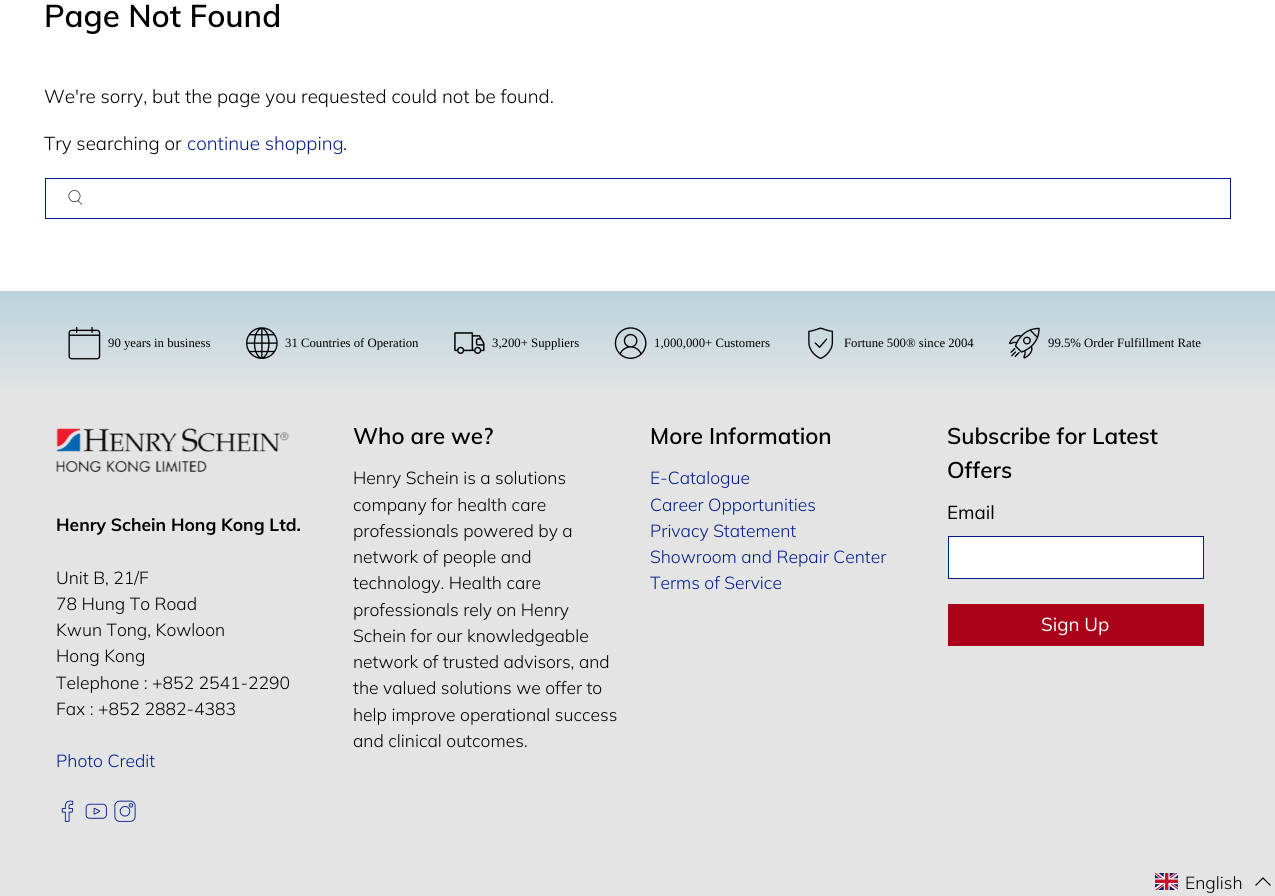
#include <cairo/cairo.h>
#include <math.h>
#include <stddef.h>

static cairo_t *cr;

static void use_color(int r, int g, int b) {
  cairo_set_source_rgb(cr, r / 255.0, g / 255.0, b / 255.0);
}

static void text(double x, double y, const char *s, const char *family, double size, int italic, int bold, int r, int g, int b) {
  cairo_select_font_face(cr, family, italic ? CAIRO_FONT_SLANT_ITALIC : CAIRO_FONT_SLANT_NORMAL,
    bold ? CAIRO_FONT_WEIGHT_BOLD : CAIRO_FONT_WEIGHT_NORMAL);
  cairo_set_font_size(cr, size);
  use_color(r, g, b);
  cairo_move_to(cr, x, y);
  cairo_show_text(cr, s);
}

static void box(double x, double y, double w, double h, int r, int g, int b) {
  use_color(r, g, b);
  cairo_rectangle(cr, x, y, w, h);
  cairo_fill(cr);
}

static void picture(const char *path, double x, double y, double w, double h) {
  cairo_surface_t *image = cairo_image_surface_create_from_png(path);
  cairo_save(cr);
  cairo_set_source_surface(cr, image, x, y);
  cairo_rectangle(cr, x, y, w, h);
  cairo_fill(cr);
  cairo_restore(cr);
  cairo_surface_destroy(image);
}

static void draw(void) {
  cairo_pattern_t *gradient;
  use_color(255, 255, 255);
  cairo_paint(cr);
  cairo_rectangle(cr, 45.5, 178.5, 1185, 40);
  use_color(0, 28, 141);
  cairo_set_line_width(cr, 1);
  cairo_stroke(cr);
  picture("img_01.png", 68, 190, 15, 15);
  gradient = cairo_pattern_create_linear(638, 394, 638, 291);
  cairo_pattern_add_color_stop_rgba(gradient, 0, 0.894, 0.894, 0.894, 1);
  cairo_pattern_add_color_stop_rgba(gradient, 1, 0.725, 0.827, 0.863, 1);
  cairo_set_source(cr, gradient);
  cairo_pattern_destroy(gradient);
  cairo_rectangle(cr, 0, 291, 1275, 103);
  cairo_fill(cr);
  picture("img_02.png", 68, 326, 33, 34);
  picture("img_03.png", 246, 327, 32, 32);
  picture("img_04.png", 454, 332, 31, 22);
  picture("img_05.png", 614, 327, 33, 32);
  picture("img_06.png", 808, 327, 25, 33);
  picture("img_07.png", 1009, 327, 31, 32);
  box(0, 394, 1275, 502, 228, 228, 228);
  picture("img_08.png", 56, 428, 234, 45);
  picture("img_09.png", 61, 800, 13, 22);
  picture("img_10.png", 85, 803, 22, 16);
  picture("img_11.png", 114, 800, 22, 22);
  use_color(255, 255, 255);
  cairo_rectangle(cr, 948.5, 536.5, 255, 42);
  cairo_fill_preserve(cr);
  use_color(0, 28, 141);
  cairo_stroke(cr);
  box(948, 604, 256, 42, 171, 0, 26);
  picture("img_12.png", 1155, 873, 23, 17);
  cairo_new_path(cr);
  cairo_move_to(cr, 1270.5, 885.5);
  cairo_line_to(cr, 1263, 878);
  cairo_line_to(cr, 1255.5, 885.5);
  use_color(0, 0, 0);
  cairo_set_line_width(cr, 1.2);
  cairo_stroke(cr);
  text(44, 27, "Page Not Found", "Muli SemiBold", 31.25, 0, 0, 0, 0, 0);
  text(44, 103, "We're sorry, but the page you requested could not be found.", "Muli Light", 18.75, 0, 0, 0, 0, 0);
  text(44, 150, "Try searching or", "Muli Light", 18.75, 0, 0, 0, 0, 0);
  text(187, 150, "continue shopping", "Muli Light", 18.75, 0, 0, 0, 28, 141);
  text(343, 150, ".", "Muli Light", 18.75, 0, 0, 0, 0, 0);
  text(108, 347, "90 years in business", "Liberation Serif", 12.75, 0, 0, 0, 0, 0);
  text(285, 347, "31 Countries of Operation", "Liberation Serif", 12.75, 0, 0, 0, 0, 0);
  text(492, 347, "3,200+ Suppliers", "Liberation Serif", 12.75, 0, 0, 0, 0, 0);
  text(654, 347, "1,000,000+ Customers", "Liberation Serif", 12.75, 0, 0, 0, 0, 0);
  text(844, 347, "Fortune 500® since 2004", "Liberation Serif", 12.75, 0, 0, 0, 0, 0);
  text(1048, 347, "99.5% Order Fulfillment Rate", "Liberation Serif", 12.75, 0, 0, 0, 0, 0);
  text(56, 531, "Henry Schein Hong Kong Ltd.", "Muli", 17.5, 0, 1, 0, 0, 0);
  text(56, 584, "Unit B, 21/F", "Muli Light", 17.5, 0, 0, 0, 0, 0);
  text(56, 610, "78 Hung To Road", "Muli Light", 17.5, 0, 0, 0, 0, 0);
  text(56, 636, "Kwun Tong, Kowloon", "Muli Light", 17.5, 0, 0, 0, 0, 0);
  text(56, 662, "Hong Kong", "Muli Light", 17.5, 0, 0, 0, 0, 0);
  text(56, 689, "Telephone : +852 2541-2290", "Muli Light", 17.5, 0, 0, 0, 0, 0);
  text(56, 715, "Fax : +852 2882-4383", "Muli Light", 17.5, 0, 0, 0, 0, 0);
  text(56, 767, "Photo Credit", "Muli Light", 17.5, 0, 0, 0, 28, 141);
  text(353, 444, "Who are we?", "Muli SemiBold", 22.5, 0, 0, 0, 0, 0);
  text(353, 484, "Henry Schein is a solutions", "Muli Light", 17.5, 0, 0, 0, 0, 0);
  text(353, 511, "company for health care", "Muli Light", 17.5, 0, 0, 0, 0, 0);
  text(353, 537, "professionals powered by a", "Muli Light", 17.5, 0, 0, 0, 0, 0);
  text(353, 563, "network of people and", "Muli Light", 17.5, 0, 0, 0, 0, 0);
  text(353, 589, "technology. Health care", "Muli Light", 17.5, 0, 0, 0, 0, 0);
  text(353, 616, "professionals rely on Henry", "Muli Light", 17.5, 0, 0, 0, 0, 0);
  text(353, 642, "Schein for our knowledgeable", "Muli Light", 17.5, 0, 0, 0, 0, 0);
  text(353, 668, "network of trusted advisors, and", "Muli Light", 17.5, 0, 0, 0, 0, 0);
  text(353, 694, "the valued solutions we offer to", "Muli Light", 17.5, 0, 0, 0, 0, 0);
  text(353, 721, "help improve operational success", "Muli Light", 17.5, 0, 0, 0, 0, 0);
  text(353, 747, "and clinical outcomes.", "Muli Light", 17.5, 0, 0, 0, 0, 0);
  text(650, 444, "More Information", "Muli SemiBold", 22.5, 0, 0, 0, 0, 0);
  text(650, 484, "E-Catalogue", "Muli Light", 17.5, 0, 0, 0, 28, 141);
  text(650, 511, "Career Opportunities", "Muli Light", 17.5, 0, 0, 0, 28, 141);
  text(650, 537, "Privacy Statement", "Muli Light", 17.5, 0, 0, 0, 28, 141);
  text(650, 563, "Showroom and Repair Center", "Muli Light", 17.5, 0, 0, 0, 28, 141);
  text(650, 589, "Terms of Service", "Muli Light", 17.5, 0, 0, 0, 28, 141);
  text(947, 444, "Subscribe for Latest", "Muli SemiBold", 22.5, 0, 0, 0, 0, 0);
  text(947, 478, "Offers", "Muli SemiBold", 22.5, 0, 0, 0, 0, 0);
  text(947, 519, "Email", "Muli", 18.75, 0, 0, 0, 0, 0);
  text(1041, 631, "Sign Up", "Muli", 18.75, 0, 0, 255, 255, 255);
  text(1185, 889, "English", "Muli Light", 17.5, 0, 0, 0, 0, 0);
}

int main(void) {
  cairo_surface_t *surface = cairo_image_surface_create(CAIRO_FORMAT_RGB24, 1275, 896);
  cr = cairo_create(surface);
  cairo_font_options_t *options = cairo_font_options_create();
  cairo_font_options_set_hint_metrics(options, CAIRO_HINT_METRICS_OFF);
  cairo_font_options_set_hint_style(options, CAIRO_HINT_STYLE_NONE);
  cairo_set_font_options(cr, options);
  cairo_set_miter_limit(cr, 4);
  draw();
  cairo_surface_write_to_png(surface, "out.png");
  cairo_font_options_destroy(options);
  cairo_destroy(cr);
  cairo_surface_destroy(surface);
  return 0;
}
